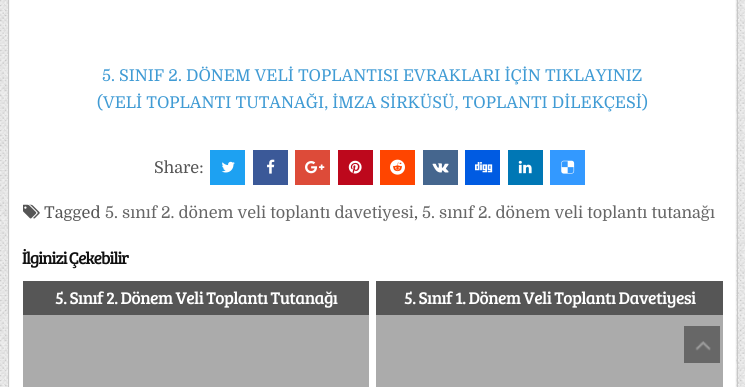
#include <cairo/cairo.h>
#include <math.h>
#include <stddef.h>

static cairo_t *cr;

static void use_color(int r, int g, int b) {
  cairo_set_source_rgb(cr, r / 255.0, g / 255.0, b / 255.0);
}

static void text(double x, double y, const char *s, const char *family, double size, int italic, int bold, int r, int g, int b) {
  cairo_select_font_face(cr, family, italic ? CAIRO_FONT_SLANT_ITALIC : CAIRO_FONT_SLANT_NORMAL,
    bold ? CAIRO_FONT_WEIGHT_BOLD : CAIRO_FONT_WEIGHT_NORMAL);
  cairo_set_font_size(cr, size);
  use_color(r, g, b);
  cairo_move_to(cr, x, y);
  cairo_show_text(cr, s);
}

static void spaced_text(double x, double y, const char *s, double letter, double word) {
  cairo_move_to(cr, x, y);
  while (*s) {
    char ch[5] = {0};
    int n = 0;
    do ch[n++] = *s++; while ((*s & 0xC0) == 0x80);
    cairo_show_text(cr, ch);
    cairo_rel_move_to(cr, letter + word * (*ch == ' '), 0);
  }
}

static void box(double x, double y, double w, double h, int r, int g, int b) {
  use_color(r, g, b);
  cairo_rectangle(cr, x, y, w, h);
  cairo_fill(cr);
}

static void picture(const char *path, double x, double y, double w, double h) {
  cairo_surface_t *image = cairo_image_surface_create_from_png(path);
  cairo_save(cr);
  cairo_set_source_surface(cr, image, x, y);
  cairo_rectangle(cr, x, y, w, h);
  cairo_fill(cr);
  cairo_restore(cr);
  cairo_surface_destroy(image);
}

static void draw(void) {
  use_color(255, 255, 255);
  cairo_paint(cr);
  picture("img_01.png", 0, 0, 745, 387);
  cairo_rectangle(cr, 8.5, -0.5, 729, 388);
  use_color(200, 200, 200);
  cairo_set_line_width(cr, 1);
  cairo_stroke(cr);
  cairo_rectangle(cr, 9.5, -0.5, 726, 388);
  use_color(249, 249, 249);
  cairo_stroke(cr);
  box(10, 0, 725, 387, 255, 255, 255);
  box(210, 150, 35, 35, 29, 161, 242);
  picture("img_02.png", 221, 161, 14, 12);
  box(253, 150, 35, 35, 59, 89, 152);
  picture("img_03.png", 267, 159, 8, 15);
  box(295, 150, 35, 35, 221, 75, 57);
  picture("img_04.png", 305, 161, 20, 13);
  box(338, 150, 35, 35, 189, 8, 28);
  picture("img_05.png", 348, 160, 14, 14);
  box(380, 150, 35, 35, 255, 69, 0);
  picture("img_06.png", 390, 159, 15, 16);
  box(423, 150, 35, 35, 69, 102, 142);
  picture("img_07.png", 432, 163, 17, 10);
  box(465, 150, 35, 35, 0, 91, 226);
  picture("img_08.png", 475, 162, 18, 11);
  box(508, 150, 35, 35, 0, 119, 181);
  picture("img_09.png", 518, 160, 14, 14);
  box(550, 150, 35, 35, 51, 153, 255);
  picture("img_10.png", 561, 160, 14, 14);
  picture("img_11.png", 23, 204, 17, 15);
  box(23, 281, 346, 34, 86, 86, 86);
  box(23, 315, 346, 72, 171, 171, 171);
  box(376, 281, 347, 34, 86, 86, 86);
  box(376, 315, 347, 72, 171, 171, 171);
  box(684, 326, 36, 37, 103, 103, 103);
  picture("img_12.png", 695, 341, 16, 10);
  text(102, 81, "5. SINIF 2. DÖNEM VELİ TOPLANTISI EVRAKLARI İÇİN TIKLAYINIZ", "Domine", 16.25, 0, 0, 64, 155, 212);
  text(97, 108, "(VELİ TOPLANTI TUTANAĞI, İMZA SİRKÜSÜ, TOPLANTI DİLEKÇESİ)", "Domine", 16.25, 0, 0, 64, 155, 212);
  text(154, 173, "Share:", "Domine", 16.25, 0, 0, 85, 85, 85);
  text(44, 218, "Tagged", "Domine", 16.25, 0, 0, 85, 85, 85);
  text(105, 218, "5. sınıf 2. dönem veli toplantı davetiyesi", "Domine", 16.25, 0, 0, 102, 102, 102);
  text(414, 218, ",", "Domine", 16.25, 0, 0, 85, 85, 85);
  text(422, 218, "5. sınıf 2. dönem veli toplantı tutanağı", "Domine", 16.25, 0, 0, 102, 102, 102);
  cairo_select_font_face(cr, "Bree Serif", CAIRO_FONT_SLANT_NORMAL, CAIRO_FONT_WEIGHT_NORMAL);
  cairo_set_font_size(cr, 17.5);
  use_color(17, 17, 17);
  spaced_text(22, 264, "İlginizi Çekebilir", -1.25, 0);
  use_color(255, 255, 255);
  spaced_text(55, 304, "5. Sınıf 2. Dönem Veli Toplantı Tutanağı", -0.6, 0);
  spaced_text(404, 304, "5. Sınıf 1. Dönem Veli Toplantı Davetiyesi", -0.6, 0);
}

int main(void) {
  cairo_surface_t *surface = cairo_image_surface_create(CAIRO_FORMAT_RGB24, 745, 387);
  cr = cairo_create(surface);
  cairo_font_options_t *options = cairo_font_options_create();
  cairo_font_options_set_hint_metrics(options, CAIRO_HINT_METRICS_OFF);
  cairo_font_options_set_hint_style(options, CAIRO_HINT_STYLE_NONE);
  cairo_set_font_options(cr, options);
  cairo_set_miter_limit(cr, 4);
  draw();
  cairo_surface_write_to_png(surface, "out.png");
  cairo_font_options_destroy(options);
  cairo_destroy(cr);
  cairo_surface_destroy(surface);
  return 0;
}
